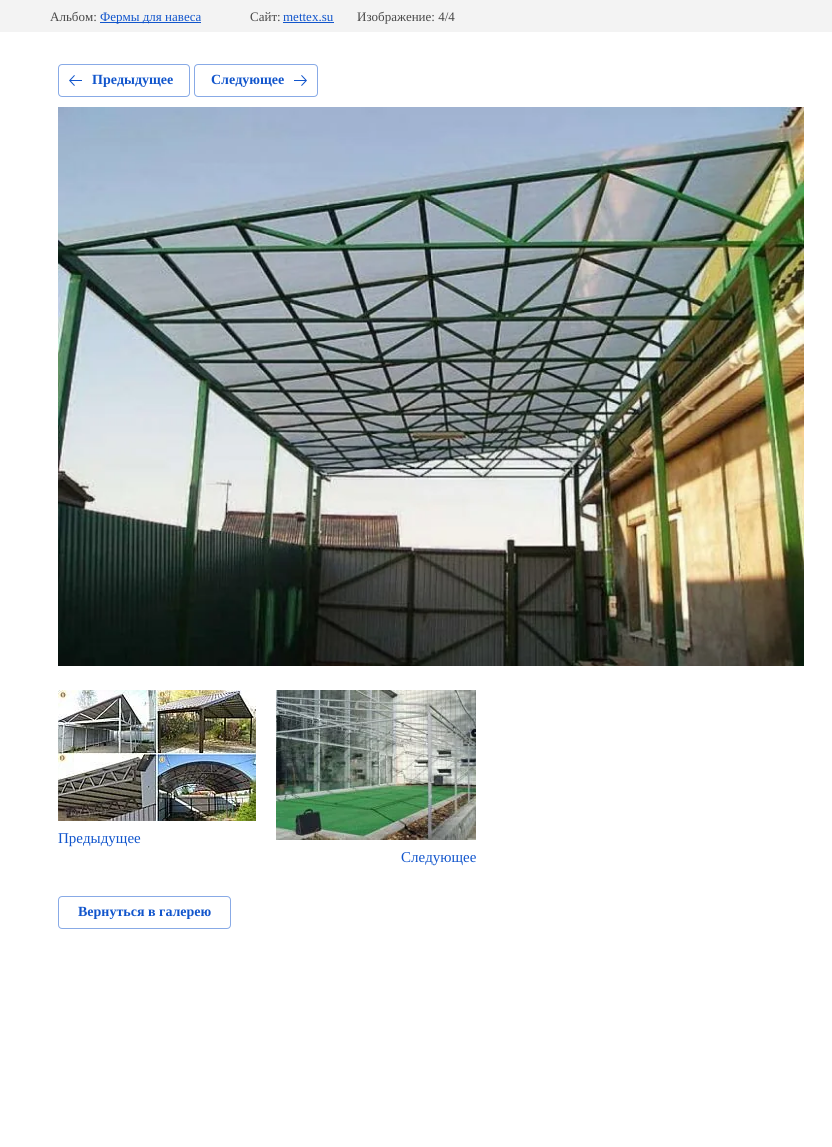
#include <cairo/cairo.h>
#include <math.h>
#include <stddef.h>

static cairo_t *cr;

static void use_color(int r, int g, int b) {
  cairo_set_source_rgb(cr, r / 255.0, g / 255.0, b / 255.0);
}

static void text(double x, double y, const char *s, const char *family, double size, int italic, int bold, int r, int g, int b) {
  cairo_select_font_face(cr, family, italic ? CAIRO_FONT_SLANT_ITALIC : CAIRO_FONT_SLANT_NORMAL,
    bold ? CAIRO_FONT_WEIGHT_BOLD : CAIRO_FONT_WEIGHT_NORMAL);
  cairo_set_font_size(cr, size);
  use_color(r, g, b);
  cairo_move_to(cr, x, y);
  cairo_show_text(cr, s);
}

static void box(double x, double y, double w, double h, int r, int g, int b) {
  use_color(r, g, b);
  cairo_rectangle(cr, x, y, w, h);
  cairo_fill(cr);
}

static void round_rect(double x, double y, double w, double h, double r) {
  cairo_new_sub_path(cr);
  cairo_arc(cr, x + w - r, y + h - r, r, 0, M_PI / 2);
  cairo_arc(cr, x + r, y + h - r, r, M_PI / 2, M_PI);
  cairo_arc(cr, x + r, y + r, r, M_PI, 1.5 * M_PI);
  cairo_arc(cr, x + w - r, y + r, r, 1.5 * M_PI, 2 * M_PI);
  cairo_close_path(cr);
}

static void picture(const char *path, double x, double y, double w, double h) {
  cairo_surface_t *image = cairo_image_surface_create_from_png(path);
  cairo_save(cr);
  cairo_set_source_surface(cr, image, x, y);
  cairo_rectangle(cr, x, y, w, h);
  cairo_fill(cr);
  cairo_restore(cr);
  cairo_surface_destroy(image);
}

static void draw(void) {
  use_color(255, 255, 255);
  cairo_paint(cr);
  box(0, 0, 832, 32, 243, 243, 243);
  box(100, 22, 101, 1, 17, 85, 204);
  box(283, 22, 51, 1, 17, 85, 204);
  round_rect(58.5, 64.5, 131, 32, 3.5);
  use_color(136, 170, 230);
  cairo_set_line_width(cr, 1);
  cairo_stroke(cr);
  picture("img_01.png", 69, 75, 13, 11);
  round_rect(194.5, 64.5, 123, 32, 3.5);
  cairo_stroke(cr);
  picture("img_02.png", 294, 75, 13, 11);
  picture("img_03.png", 58, 107, 746, 559);
  picture("img_04.png", 58, 690, 198, 131);
  picture("img_05.png", 276, 690, 200, 150);
  round_rect(58.5, 896.5, 172, 32, 3.5);
  cairo_stroke(cr);
  text(50, 21, "Альбом:", "Liberation Serif", 13, 0, 0, 72, 72, 72);
  text(100, 21, "Фермы для навеса", "Liberation Serif", 13, 0, 0, 17, 85, 204);
  text(250, 21, "Сайт:", "Liberation Serif", 13, 0, 0, 72, 72, 72);
  text(283, 21, "mettex.su", "Liberation Serif", 13, 0, 0, 17, 85, 204);
  text(357, 21, "Изображение: 4/4", "Liberation Serif", 13, 0, 0, 72, 72, 72);
  text(92, 84, "Предыдущее", "Liberation Serif", 14, 0, 1, 17, 85, 204);
  text(211, 84, "Следующее", "Liberation Serif", 14, 0, 1, 17, 85, 204);
  text(58, 843, "Предыдущее", "Liberation Serif", 15, 0, 0, 17, 85, 204);
  text(401, 862, "Следующее", "Liberation Serif", 15, 0, 0, 17, 85, 204);
  text(78, 916, "Вернуться в галерею", "Liberation Serif", 14, 0, 1, 17, 85, 204);
}

int main(void) {
  cairo_surface_t *surface = cairo_image_surface_create(CAIRO_FORMAT_RGB24, 832, 1147);
  cr = cairo_create(surface);
  cairo_font_options_t *options = cairo_font_options_create();
  cairo_font_options_set_hint_metrics(options, CAIRO_HINT_METRICS_OFF);
  cairo_font_options_set_hint_style(options, CAIRO_HINT_STYLE_NONE);
  cairo_set_font_options(cr, options);
  cairo_set_miter_limit(cr, 4);
  draw();
  cairo_surface_write_to_png(surface, "out.png");
  cairo_font_options_destroy(options);
  cairo_destroy(cr);
  cairo_surface_destroy(surface);
  return 0;
}
